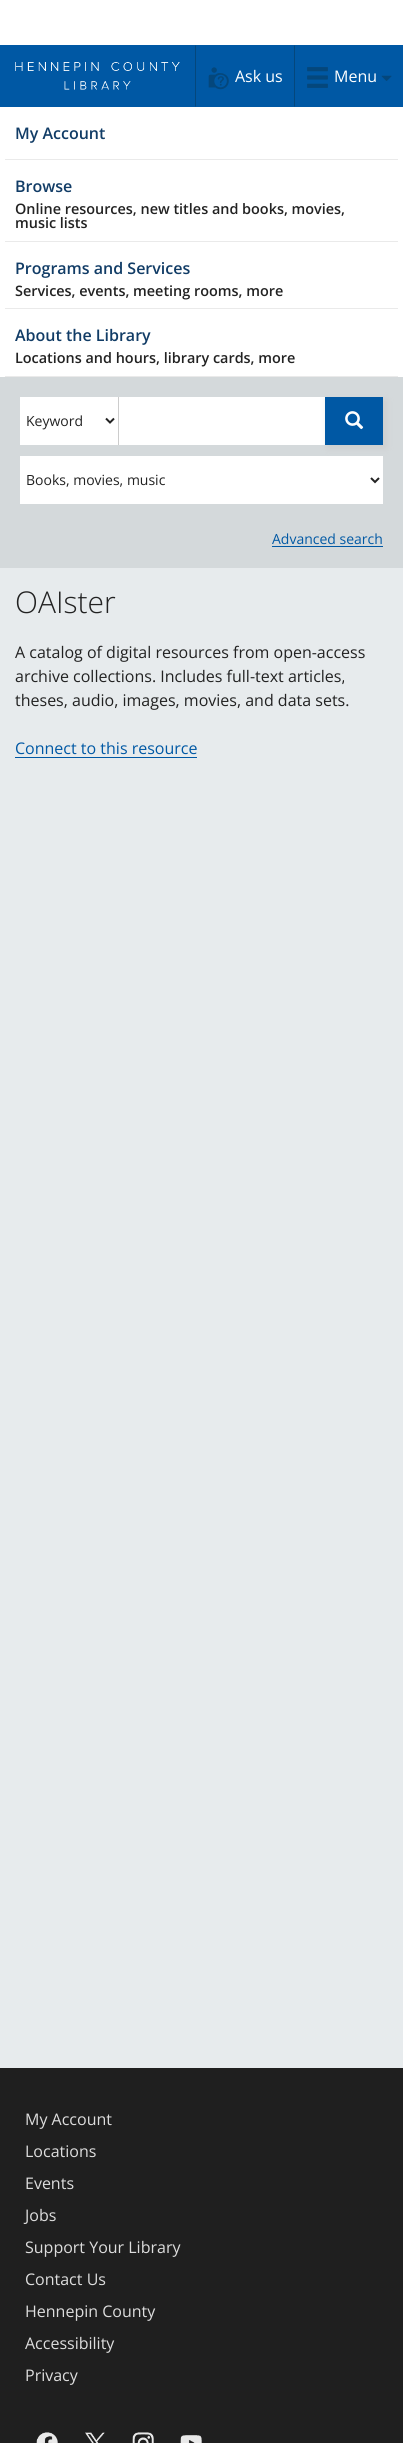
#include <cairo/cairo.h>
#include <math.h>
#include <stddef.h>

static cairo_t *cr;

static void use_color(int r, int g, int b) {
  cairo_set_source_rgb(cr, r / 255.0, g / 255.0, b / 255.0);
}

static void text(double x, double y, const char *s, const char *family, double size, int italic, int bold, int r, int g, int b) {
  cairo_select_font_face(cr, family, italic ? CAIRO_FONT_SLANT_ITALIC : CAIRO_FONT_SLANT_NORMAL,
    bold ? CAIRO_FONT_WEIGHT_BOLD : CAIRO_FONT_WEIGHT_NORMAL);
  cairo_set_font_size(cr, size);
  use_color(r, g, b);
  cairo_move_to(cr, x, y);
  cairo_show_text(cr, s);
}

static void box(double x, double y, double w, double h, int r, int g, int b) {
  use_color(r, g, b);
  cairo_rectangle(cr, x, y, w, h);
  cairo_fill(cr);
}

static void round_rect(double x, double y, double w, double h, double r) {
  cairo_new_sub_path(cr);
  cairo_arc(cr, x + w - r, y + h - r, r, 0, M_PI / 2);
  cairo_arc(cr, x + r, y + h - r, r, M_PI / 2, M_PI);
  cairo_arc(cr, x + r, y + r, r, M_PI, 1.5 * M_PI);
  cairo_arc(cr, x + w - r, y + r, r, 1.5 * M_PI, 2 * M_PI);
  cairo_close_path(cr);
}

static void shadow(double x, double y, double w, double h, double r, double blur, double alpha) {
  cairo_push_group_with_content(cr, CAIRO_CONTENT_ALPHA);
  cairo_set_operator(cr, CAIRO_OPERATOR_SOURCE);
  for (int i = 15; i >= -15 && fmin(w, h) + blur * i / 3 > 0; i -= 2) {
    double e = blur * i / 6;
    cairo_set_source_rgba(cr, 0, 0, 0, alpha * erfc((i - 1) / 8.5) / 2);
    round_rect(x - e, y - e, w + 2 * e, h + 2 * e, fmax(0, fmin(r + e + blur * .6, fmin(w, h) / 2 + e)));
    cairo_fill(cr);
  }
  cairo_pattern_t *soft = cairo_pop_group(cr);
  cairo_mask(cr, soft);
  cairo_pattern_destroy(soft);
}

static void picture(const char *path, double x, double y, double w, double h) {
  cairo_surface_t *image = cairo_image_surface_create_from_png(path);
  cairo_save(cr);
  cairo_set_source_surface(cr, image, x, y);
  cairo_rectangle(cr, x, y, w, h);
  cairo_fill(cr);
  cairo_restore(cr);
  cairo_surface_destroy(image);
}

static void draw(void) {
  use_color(231, 235, 237);
  cairo_paint(cr);
  box(0, 0, 403, 45, 255, 255, 255);
  box(0, 45, 403, 62, 0, 88, 164);
  picture("img_01.png", 15, 62, 165, 28);
  use_color(4, 71, 124);
  cairo_new_path(cr);
  cairo_move_to(cr, 195, 107);
  cairo_line_to(cr, 195, 45);
  cairo_line_to(cr, 196, 46);
  cairo_line_to(cr, 196, 106);
  cairo_close_path(cr);
  cairo_fill(cr);
  picture("img_02.png", 208, 67, 21, 23);
  cairo_new_path(cr);
  cairo_move_to(cr, 294, 107);
  cairo_line_to(cr, 294, 45);
  cairo_line_to(cr, 295, 46);
  cairo_line_to(cr, 295, 106);
  cairo_close_path(cr);
  cairo_fill(cr);
  picture("img_03.png", 307, 67, 21, 21);
  picture("img_04.png", 381, 75, 11, 6);
  box(0, 107, 403, 270, 255, 255, 255);
  box(5, 159, 393, 1, 234, 234, 234);
  box(5, 241, 393, 1, 234, 234, 234);
  box(5, 308, 393, 1, 234, 234, 234);
  box(5, 376, 393, 1, 234, 234, 234);
  box(0, 377, 403, 191, 212, 217, 219);
  box(119, 397, 206, 48, 255, 255, 255);
  box(20, 397, 98, 48, 255, 255, 255);
  cairo_new_path(cr);
  cairo_move_to(cr, 106, 418.5);
  cairo_line_to(cr, 110, 422.5);
  cairo_line_to(cr, 114, 418.5);
  use_color(34, 34, 34);
  cairo_stroke(cr);
  box(118, 397, 1, 48, 204, 204, 204);
  box(20, 456, 363, 48, 255, 255, 255);
  use_color(204, 204, 204);
  shadow(328, 400, 58, 48, 0, 3.5, 0.9);
  box(325, 397, 58, 48, 0, 88, 164);
  picture("img_05.png", 345, 411, 19, 19);
  cairo_new_path(cr);
  cairo_move_to(cr, 371, 478);
  cairo_line_to(cr, 375, 482);
  cairo_line_to(cr, 379, 478);
  use_color(34, 34, 34);
  cairo_stroke(cr);
  box(272, 546, 111, 1, 0, 88, 164);
  box(15, 757, 182, 1, 0, 88, 164);
  box(0, 2068, 403, 375, 31, 31, 31);
  picture("img_06.png", 36, 2432, 22, 11);
  picture("img_07.png", 85, 2432, 20, 11);
  picture("img_08.png", 132, 2432, 22, 11);
  picture("img_09.png", 180, 2435, 22, 8);
  text(235, 82, "Ask us", "Open Sans", 16, 0, 0, 255, 255, 255);
  text(334, 82, "Menu", "Open Sans", 16, 0, 0, 255, 255, 255);
  text(15, 139, "My Account", "Open Sans SemiBold", 16, 0, 0, 17, 60, 102);
  text(15, 192, "Browse", "Open Sans SemiBold", 16, 0, 0, 17, 60, 102);
  text(15, 214, "Online resources, new titles and books, movies,", "Open Sans SemiBold", 14.4, 0, 0, 34, 34, 34);
  text(15, 228, "music lists", "Open Sans SemiBold", 14.4, 0, 0, 34, 34, 34);
  text(15, 274, "Programs and Services", "Open Sans SemiBold", 16, 0, 0, 17, 60, 102);
  text(15, 296, "Services, events, meeting rooms, more", "Open Sans SemiBold", 14.4, 0, 0, 34, 34, 34);
  text(15, 341, "About the Library", "Open Sans SemiBold", 16, 0, 0, 17, 60, 102);
  text(15, 363, "Locations and hours, library cards, more", "Open Sans SemiBold", 14.4, 0, 0, 34, 34, 34);
  text(26, 426, "Keyword", "Open Sans", 14, 0, 0, 34, 34, 34);
  text(26, 485, "Books, movies, music", "Open Sans", 14, 0, 0, 34, 34, 34);
  text(272, 544, "Advanced search", "Open Sans", 14, 0, 0, 0, 88, 164);
  text(15, 613, "OAIster", "Open Sans Light", 30, 0, 0, 34, 34, 34);
  text(15, 658, "A catalog of digital resources from open-access", "Open Sans", 16, 0, 0, 34, 34, 34);
  text(15, 682, "archive collections. Includes full-text articles,", "Open Sans", 16, 0, 0, 34, 34, 34);
  text(15, 706, "theses, audio, images, movies, and data sets.", "Open Sans", 16, 0, 0, 34, 34, 34);
  text(15, 754, "Connect to this resource", "Open Sans", 16, 0, 0, 0, 88, 164);
  text(25, 2125, "My Account", "Open Sans", 16, 0, 0, 221, 221, 221);
  text(25, 2157, "Locations", "Open Sans", 16, 0, 0, 221, 221, 221);
  text(25, 2189, "Events", "Open Sans", 16, 0, 0, 221, 221, 221);
  text(25, 2221, "Jobs", "Open Sans", 16, 0, 0, 221, 221, 221);
  text(25, 2253, "Support Your Library", "Open Sans", 16, 0, 0, 221, 221, 221);
  text(25, 2285, "Contact Us", "Open Sans", 16, 0, 0, 221, 221, 221);
  text(25, 2317, "Hennepin County", "Open Sans", 16, 0, 0, 221, 221, 221);
  text(25, 2349, "Accessibility", "Open Sans", 16, 0, 0, 221, 221, 221);
  text(25, 2381, "Privacy", "Open Sans", 16, 0, 0, 221, 221, 221);
}

int main(void) {
  cairo_surface_t *surface = cairo_image_surface_create(CAIRO_FORMAT_RGB24, 403, 2443);
  cr = cairo_create(surface);
  cairo_font_options_t *options = cairo_font_options_create();
  cairo_font_options_set_hint_metrics(options, CAIRO_HINT_METRICS_OFF);
  cairo_font_options_set_hint_style(options, CAIRO_HINT_STYLE_NONE);
  cairo_set_font_options(cr, options);
  cairo_set_miter_limit(cr, 4);
  draw();
  cairo_surface_write_to_png(surface, "out.png");
  cairo_font_options_destroy(options);
  cairo_destroy(cr);
  cairo_surface_destroy(surface);
  return 0;
}
